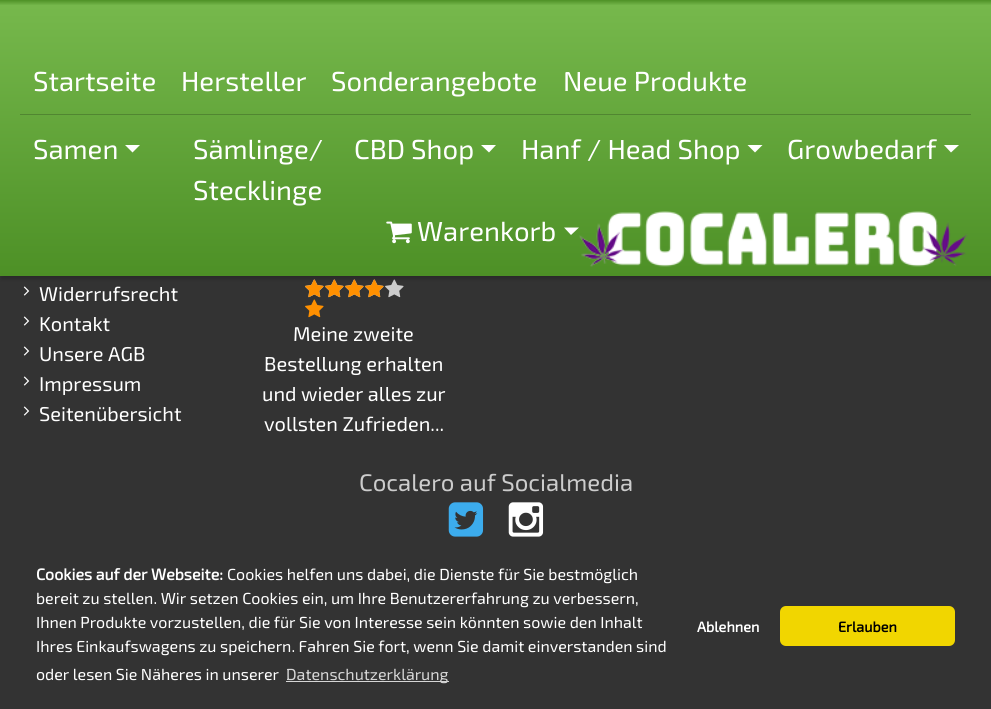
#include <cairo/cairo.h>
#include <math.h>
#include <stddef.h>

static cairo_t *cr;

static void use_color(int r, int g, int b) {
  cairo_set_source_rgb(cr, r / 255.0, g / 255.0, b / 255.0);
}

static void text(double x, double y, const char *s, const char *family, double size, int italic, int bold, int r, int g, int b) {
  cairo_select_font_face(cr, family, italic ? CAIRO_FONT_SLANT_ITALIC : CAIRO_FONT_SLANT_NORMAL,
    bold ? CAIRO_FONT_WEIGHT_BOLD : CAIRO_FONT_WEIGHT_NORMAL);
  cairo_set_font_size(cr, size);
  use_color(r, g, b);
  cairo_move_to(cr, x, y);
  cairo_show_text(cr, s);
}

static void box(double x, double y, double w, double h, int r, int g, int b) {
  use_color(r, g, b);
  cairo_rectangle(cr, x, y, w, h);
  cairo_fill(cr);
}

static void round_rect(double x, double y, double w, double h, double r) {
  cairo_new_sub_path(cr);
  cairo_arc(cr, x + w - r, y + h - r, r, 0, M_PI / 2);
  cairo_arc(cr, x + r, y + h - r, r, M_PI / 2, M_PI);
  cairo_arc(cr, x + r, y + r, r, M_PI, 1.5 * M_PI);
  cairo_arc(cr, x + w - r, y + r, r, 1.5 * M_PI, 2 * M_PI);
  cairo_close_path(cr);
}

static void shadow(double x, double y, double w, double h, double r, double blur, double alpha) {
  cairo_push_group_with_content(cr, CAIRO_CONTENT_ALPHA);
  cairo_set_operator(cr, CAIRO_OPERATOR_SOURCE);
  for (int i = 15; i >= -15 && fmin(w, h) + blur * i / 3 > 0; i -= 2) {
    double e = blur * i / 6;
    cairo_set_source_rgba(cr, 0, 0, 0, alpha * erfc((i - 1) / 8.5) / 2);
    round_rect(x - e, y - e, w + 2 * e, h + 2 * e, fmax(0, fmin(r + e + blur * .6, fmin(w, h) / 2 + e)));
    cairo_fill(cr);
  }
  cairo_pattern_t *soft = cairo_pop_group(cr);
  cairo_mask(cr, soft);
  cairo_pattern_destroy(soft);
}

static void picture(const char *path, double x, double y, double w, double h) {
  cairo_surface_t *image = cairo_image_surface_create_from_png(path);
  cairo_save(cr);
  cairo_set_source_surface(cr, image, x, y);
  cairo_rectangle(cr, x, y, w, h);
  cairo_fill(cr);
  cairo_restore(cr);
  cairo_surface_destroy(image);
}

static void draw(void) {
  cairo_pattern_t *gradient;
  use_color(51, 51, 51);
  cairo_paint(cr);
  picture("img_04.png", 305, 279, 19, 19);
  picture("img_05.png", 305, 279, 19, 19);
  picture("img_04.png", 325, 279, 19, 19);
  picture("img_05.png", 325, 279, 19, 19);
  picture("img_04.png", 345, 279, 19, 19);
  picture("img_05.png", 345, 279, 19, 19);
  picture("img_04.png", 365, 279, 19, 19);
  picture("img_05.png", 365, 279, 19, 19);
  picture("img_04.png", 385, 279, 19, 19);
  use_color(0, 0, 0);
  shadow(1, 0, 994, 279, 0, 2, 0.19);
  gradient = cairo_pattern_create_linear(496, 0, 496, 276);
  cairo_pattern_add_color_stop_rgba(gradient, 0, 0.302, 0.565, 0.149, 1);
  cairo_pattern_add_color_stop_rgba(gradient, 0.02, 0.463, 0.722, 0.298, 1);
  cairo_pattern_add_color_stop_rgba(gradient, 1, 0.302, 0.565, 0.149, 1);
  cairo_set_source(cr, gradient);
  cairo_pattern_destroy(gradient);
  cairo_rectangle(cr, 0, 0, 991, 276);
  cairo_fill(cr);
  box(20, 114, 951, 1, 81, 134, 49);
  use_color(255, 255, 255);
  cairo_new_path(cr);
  cairo_move_to(cr, 125, 145);
  cairo_line_to(cr, 140, 145);
  cairo_line_to(cr, 132.5, 152.5);
  cairo_close_path(cr);
  cairo_fill(cr);
  cairo_new_path(cr);
  cairo_move_to(cr, 481, 145);
  cairo_line_to(cr, 496, 145);
  cairo_line_to(cr, 489, 152.5);
  cairo_close_path(cr);
  cairo_fill(cr);
  cairo_new_path(cr);
  cairo_move_to(cr, 747.5, 145);
  cairo_line_to(cr, 762.5, 145);
  cairo_line_to(cr, 755, 152.5);
  cairo_close_path(cr);
  cairo_fill(cr);
  cairo_new_path(cr);
  cairo_move_to(cr, 944, 145);
  cairo_line_to(cr, 959, 145);
  cairo_line_to(cr, 951, 152.5);
  cairo_close_path(cr);
  cairo_fill(cr);
  picture("img_01.png", 386, 221, 26, 23);
  cairo_new_path(cr);
  cairo_move_to(cr, 564, 227.5);
  cairo_line_to(cr, 579, 227.5);
  cairo_line_to(cr, 571, 235);
  cairo_close_path(cr);
  cairo_fill(cr);
  picture("img_02.png", 579, 211, 389, 56);
  picture("img_03.png", 23, 286, 7, 10);
  picture("img_03.png", 23, 316, 7, 10);
  picture("img_03.png", 23, 346, 7, 10);
  picture("img_03.png", 23, 376, 7, 10);
  picture("img_03.png", 23, 406, 7, 10);
  picture("img_06.png", 305, 299, 19, 19);
  picture("img_07.png", 448, 502, 36, 35);
  picture("img_08.png", 508, 502, 36, 35);
  box(286, 681, 163, 1, 214, 214, 214);
  use_color(241, 214, 0);
  round_rect(780, 606, 175, 40, 6);
  cairo_fill(cr);
  text(33, 91, "Startseite", "Exo 2", 27.5, 0, 0, 255, 255, 255);
  text(181, 91, "Hersteller", "Exo 2", 27.5, 0, 0, 255, 255, 255);
  text(331, 91, "Sonderangebote", "Exo 2", 27.5, 0, 0, 255, 255, 255);
  text(563, 91, "Neue Produkte", "Exo 2", 27.5, 0, 0, 255, 255, 255);
  text(33, 159, "Samen", "Exo 2", 27.5, 0, 0, 255, 255, 255);
  text(193, 159, "Sämlinge/", "Exo 2", 27.5, 0, 0, 255, 255, 255);
  text(193, 200, "Stecklinge", "Exo 2", 27.5, 0, 0, 255, 255, 255);
  text(354, 159, "CBD Shop", "Exo 2", 27.5, 0, 0, 255, 255, 255);
  text(521, 159, "Hanf / Head Shop", "Exo 2", 27.5, 0, 0, 255, 255, 255);
  text(787, 159, "Growbedarf", "Exo 2", 27.5, 0, 0, 255, 255, 255);
  text(417, 241, "Warenkorb", "Exo 2", 27.5, 0, 0, 255, 255, 255);
  text(39, 301, "Widerrufsrecht", "Exo 2", 20, 0, 0, 255, 255, 255);
  text(39, 331, "Kontakt", "Exo 2", 20, 0, 0, 255, 255, 255);
  text(39, 361, "Unsere AGB", "Exo 2", 20, 0, 0, 255, 255, 255);
  text(39, 391, "Impressum", "Exo 2", 20, 0, 0, 255, 255, 255);
  text(39, 421, "Seitenübersicht", "Exo 2", 20, 0, 0, 255, 255, 255);
  text(293, 341, "Meine zweite", "Exo 2", 20, 0, 0, 255, 255, 255);
  text(264, 371, "Bestellung erhalten", "Exo 2", 20, 0, 0, 255, 255, 255);
  text(262, 401, "und wieder alles zur", "Exo 2", 20, 0, 0, 255, 255, 255);
  text(264, 431, "vollsten Zufrieden...", "Exo 2", 20, 0, 0, 255, 255, 255);
  text(359, 491, "Cocalero auf Socialmedia", "Exo 2", 24, 0, 0, 204, 204, 204);
  text(36, 580, "Cookies auf der Webseite:", "Exo 2", 16, 0, 1, 255, 255, 255);
  text(227, 580, "Cookies helfen uns dabei, die Dienste für Sie bestmöglich", "Exo 2", 16, 0, 0, 255, 255, 255);
  text(36, 604, "bereit zu stellen. Wir setzen Cookies ein, um Ihre Benutzererfahrung zu verbessern,", "Exo 2", 16, 0, 0, 255, 255, 255);
  text(36, 628, "Ihnen Produkte vorzustellen, die für Sie von Interesse sein könnten sowie den Inhalt", "Exo 2", 16, 0, 0, 255, 255, 255);
  text(36, 652, "Ihres Einkaufswagens zu speichern. Fahren Sie fort, wenn Sie damit einverstanden sind", "Exo 2", 16, 0, 0, 255, 255, 255);
  text(36, 680, "oder lesen Sie Näheres in unserer", "Exo 2", 16, 0, 0, 255, 255, 255);
  text(286, 680, "Datenschutzerklärung", "Exo 2", 16, 0, 0, 214, 214, 214);
  text(697, 632, "Ablehnen", "Exo 2", 14.5, 0, 1, 255, 255, 255);
  text(838, 632, "Erlauben", "Exo 2", 14.5, 0, 1, 0, 0, 0);
}

int main(void) {
  cairo_surface_t *surface = cairo_image_surface_create(CAIRO_FORMAT_RGB24, 991, 709);
  cr = cairo_create(surface);
  cairo_font_options_t *options = cairo_font_options_create();
  cairo_font_options_set_hint_metrics(options, CAIRO_HINT_METRICS_OFF);
  cairo_font_options_set_hint_style(options, CAIRO_HINT_STYLE_NONE);
  cairo_set_font_options(cr, options);
  cairo_set_miter_limit(cr, 4);
  draw();
  cairo_surface_write_to_png(surface, "out.png");
  cairo_font_options_destroy(options);
  cairo_destroy(cr);
  cairo_surface_destroy(surface);
  return 0;
}
